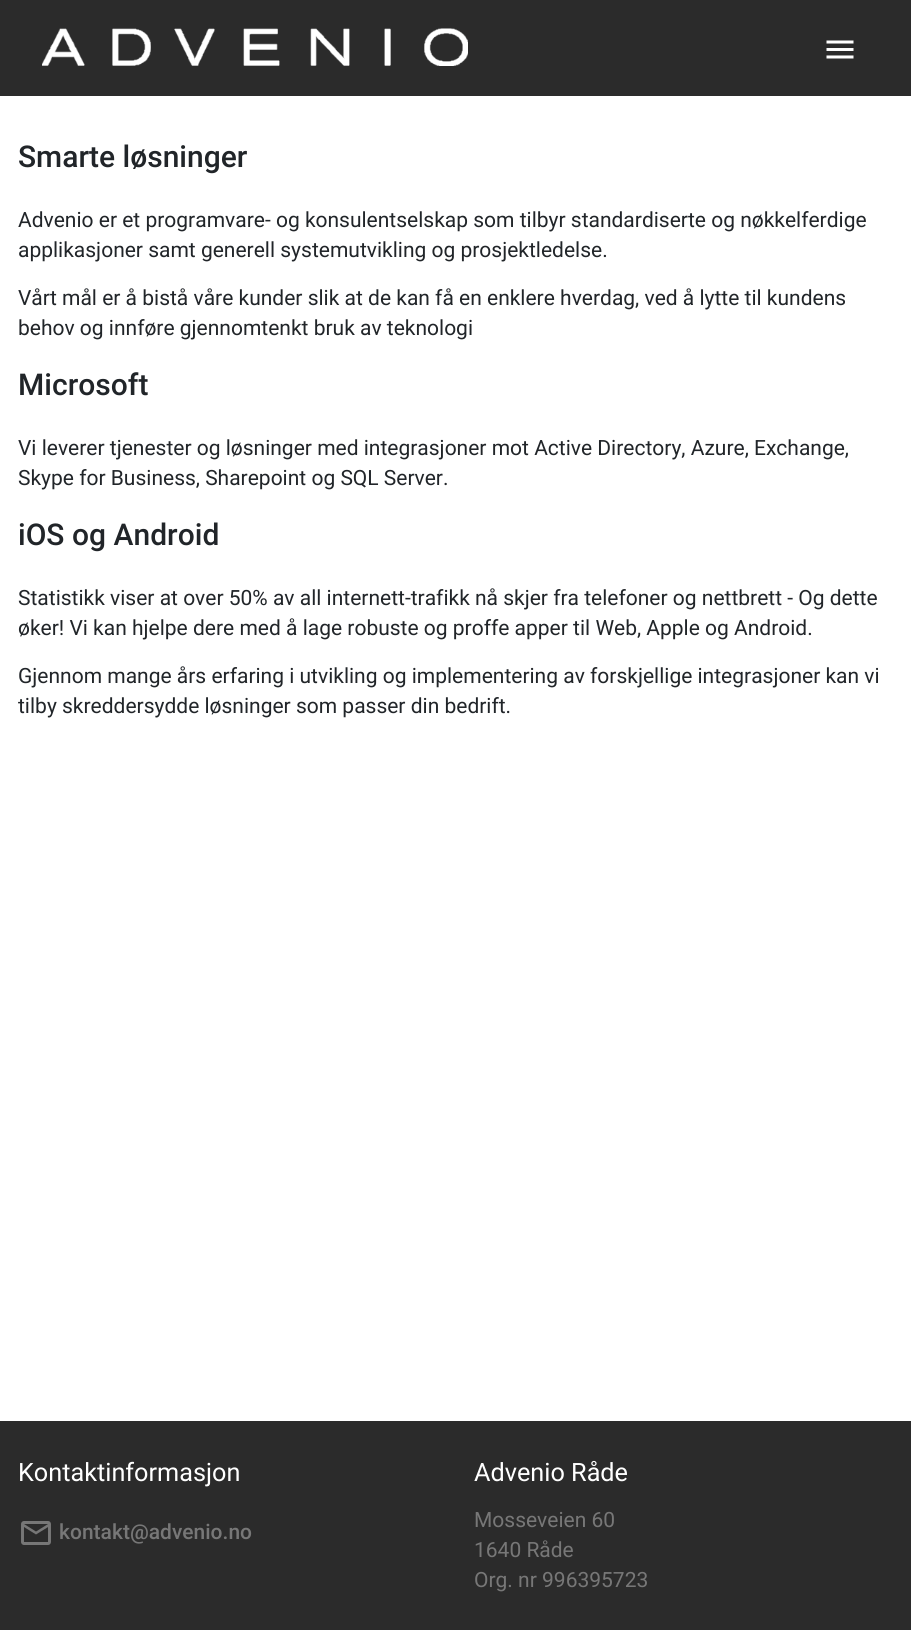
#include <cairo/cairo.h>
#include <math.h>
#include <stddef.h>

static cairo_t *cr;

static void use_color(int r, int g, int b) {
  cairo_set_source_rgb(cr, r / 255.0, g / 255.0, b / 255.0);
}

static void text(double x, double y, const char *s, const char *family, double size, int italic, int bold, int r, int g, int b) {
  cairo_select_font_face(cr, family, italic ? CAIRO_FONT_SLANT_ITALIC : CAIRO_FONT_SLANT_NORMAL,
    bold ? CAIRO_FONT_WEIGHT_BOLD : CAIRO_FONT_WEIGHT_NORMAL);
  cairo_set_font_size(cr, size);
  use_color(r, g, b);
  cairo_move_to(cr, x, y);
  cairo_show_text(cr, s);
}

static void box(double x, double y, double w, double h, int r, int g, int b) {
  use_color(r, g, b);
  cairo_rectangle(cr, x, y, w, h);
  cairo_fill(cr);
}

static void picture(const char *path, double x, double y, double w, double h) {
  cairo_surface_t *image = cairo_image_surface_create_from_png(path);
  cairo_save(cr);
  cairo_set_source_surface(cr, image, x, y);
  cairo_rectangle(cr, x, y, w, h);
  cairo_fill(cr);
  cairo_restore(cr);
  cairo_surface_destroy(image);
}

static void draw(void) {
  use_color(255, 255, 255);
  cairo_paint(cr);
  box(0, 0, 911, 96, 43, 43, 43);
  picture("img_01.png", 42, 28, 426, 38);
  picture("img_02.png", 826, 40, 28, 19);
  box(0, 1421, 911, 209, 43, 43, 43);
  picture("img_03.png", 21, 1521, 30, 24);
  text(18, 167, "Smarte løsninger", "Roboto Medium", 30, 0, 0, 33, 37, 41);
  text(18, 227, "Advenio er et programvare- og konsulentselskap som tilbyr standardiserte og nøkkelferdige", "Roboto", 21, 0, 0, 33, 37, 41);
  text(18, 257, "applikasjoner samt generell systemutvikling og prosjektledelse.", "Roboto", 21, 0, 0, 33, 37, 41);
  text(18, 305, "Vårt mål er å bistå våre kunder slik at de kan få en enklere hverdag, ved å lytte til kundens", "Roboto", 21, 0, 0, 33, 37, 41);
  text(18, 335, "behov og innføre gjennomtenkt bruk av teknologi", "Roboto", 21, 0, 0, 33, 37, 41);
  text(18, 395, "Microsoft", "Roboto Medium", 30, 0, 0, 33, 37, 41);
  text(18, 455, "Vi leverer tjenester og løsninger med integrasjoner mot Active Directory, Azure, Exchange,", "Roboto", 21, 0, 0, 33, 37, 41);
  text(18, 485, "Skype for Business, Sharepoint og SQL Server.", "Roboto", 21, 0, 0, 33, 37, 41);
  text(18, 545, "iOS og Android", "Roboto Medium", 30, 0, 0, 33, 37, 41);
  text(18, 605, "Statistikk viser at over 50% av all internett-trafikk nå skjer fra telefoner og nettbrett - Og dette", "Roboto", 21, 0, 0, 33, 37, 41);
  text(18, 635, "øker! Vi kan hjelpe dere med å lage robuste og proffe apper til Web, Apple og Android.", "Roboto", 21, 0, 0, 33, 37, 41);
  text(18, 683, "Gjennom mange års erfaring i utvikling og implementering av forskjellige integrasjoner kan vi", "Roboto", 21, 0, 0, 33, 37, 41);
  text(18, 713, "tilby skreddersydde løsninger som passer din bedrift.", "Roboto", 21, 0, 0, 33, 37, 41);
  text(18, 1481, "Kontaktinformasjon", "Roboto", 25.25, 0, 0, 255, 255, 255);
  text(59, 1539, "kontakt@advenio.no", "Roboto Medium", 21, 0, 0, 119, 119, 119);
  text(474, 1481, "Advenio Råde", "Roboto", 25.25, 0, 0, 255, 255, 255);
  text(474, 1527, "Mosseveien 60", "Roboto", 21, 0, 0, 119, 119, 119);
  text(474, 1557, "1640 Råde", "Roboto", 21, 0, 0, 119, 119, 119);
  text(474, 1587, "Org. nr 996395723", "Roboto", 21, 0, 0, 119, 119, 119);
}

int main(void) {
  cairo_surface_t *surface = cairo_image_surface_create(CAIRO_FORMAT_RGB24, 911, 1630);
  cr = cairo_create(surface);
  cairo_font_options_t *options = cairo_font_options_create();
  cairo_font_options_set_hint_metrics(options, CAIRO_HINT_METRICS_OFF);
  cairo_font_options_set_hint_style(options, CAIRO_HINT_STYLE_NONE);
  cairo_set_font_options(cr, options);
  cairo_set_miter_limit(cr, 4);
  draw();
  cairo_surface_write_to_png(surface, "out.png");
  cairo_font_options_destroy(options);
  cairo_destroy(cr);
  cairo_surface_destroy(surface);
  return 0;
}
